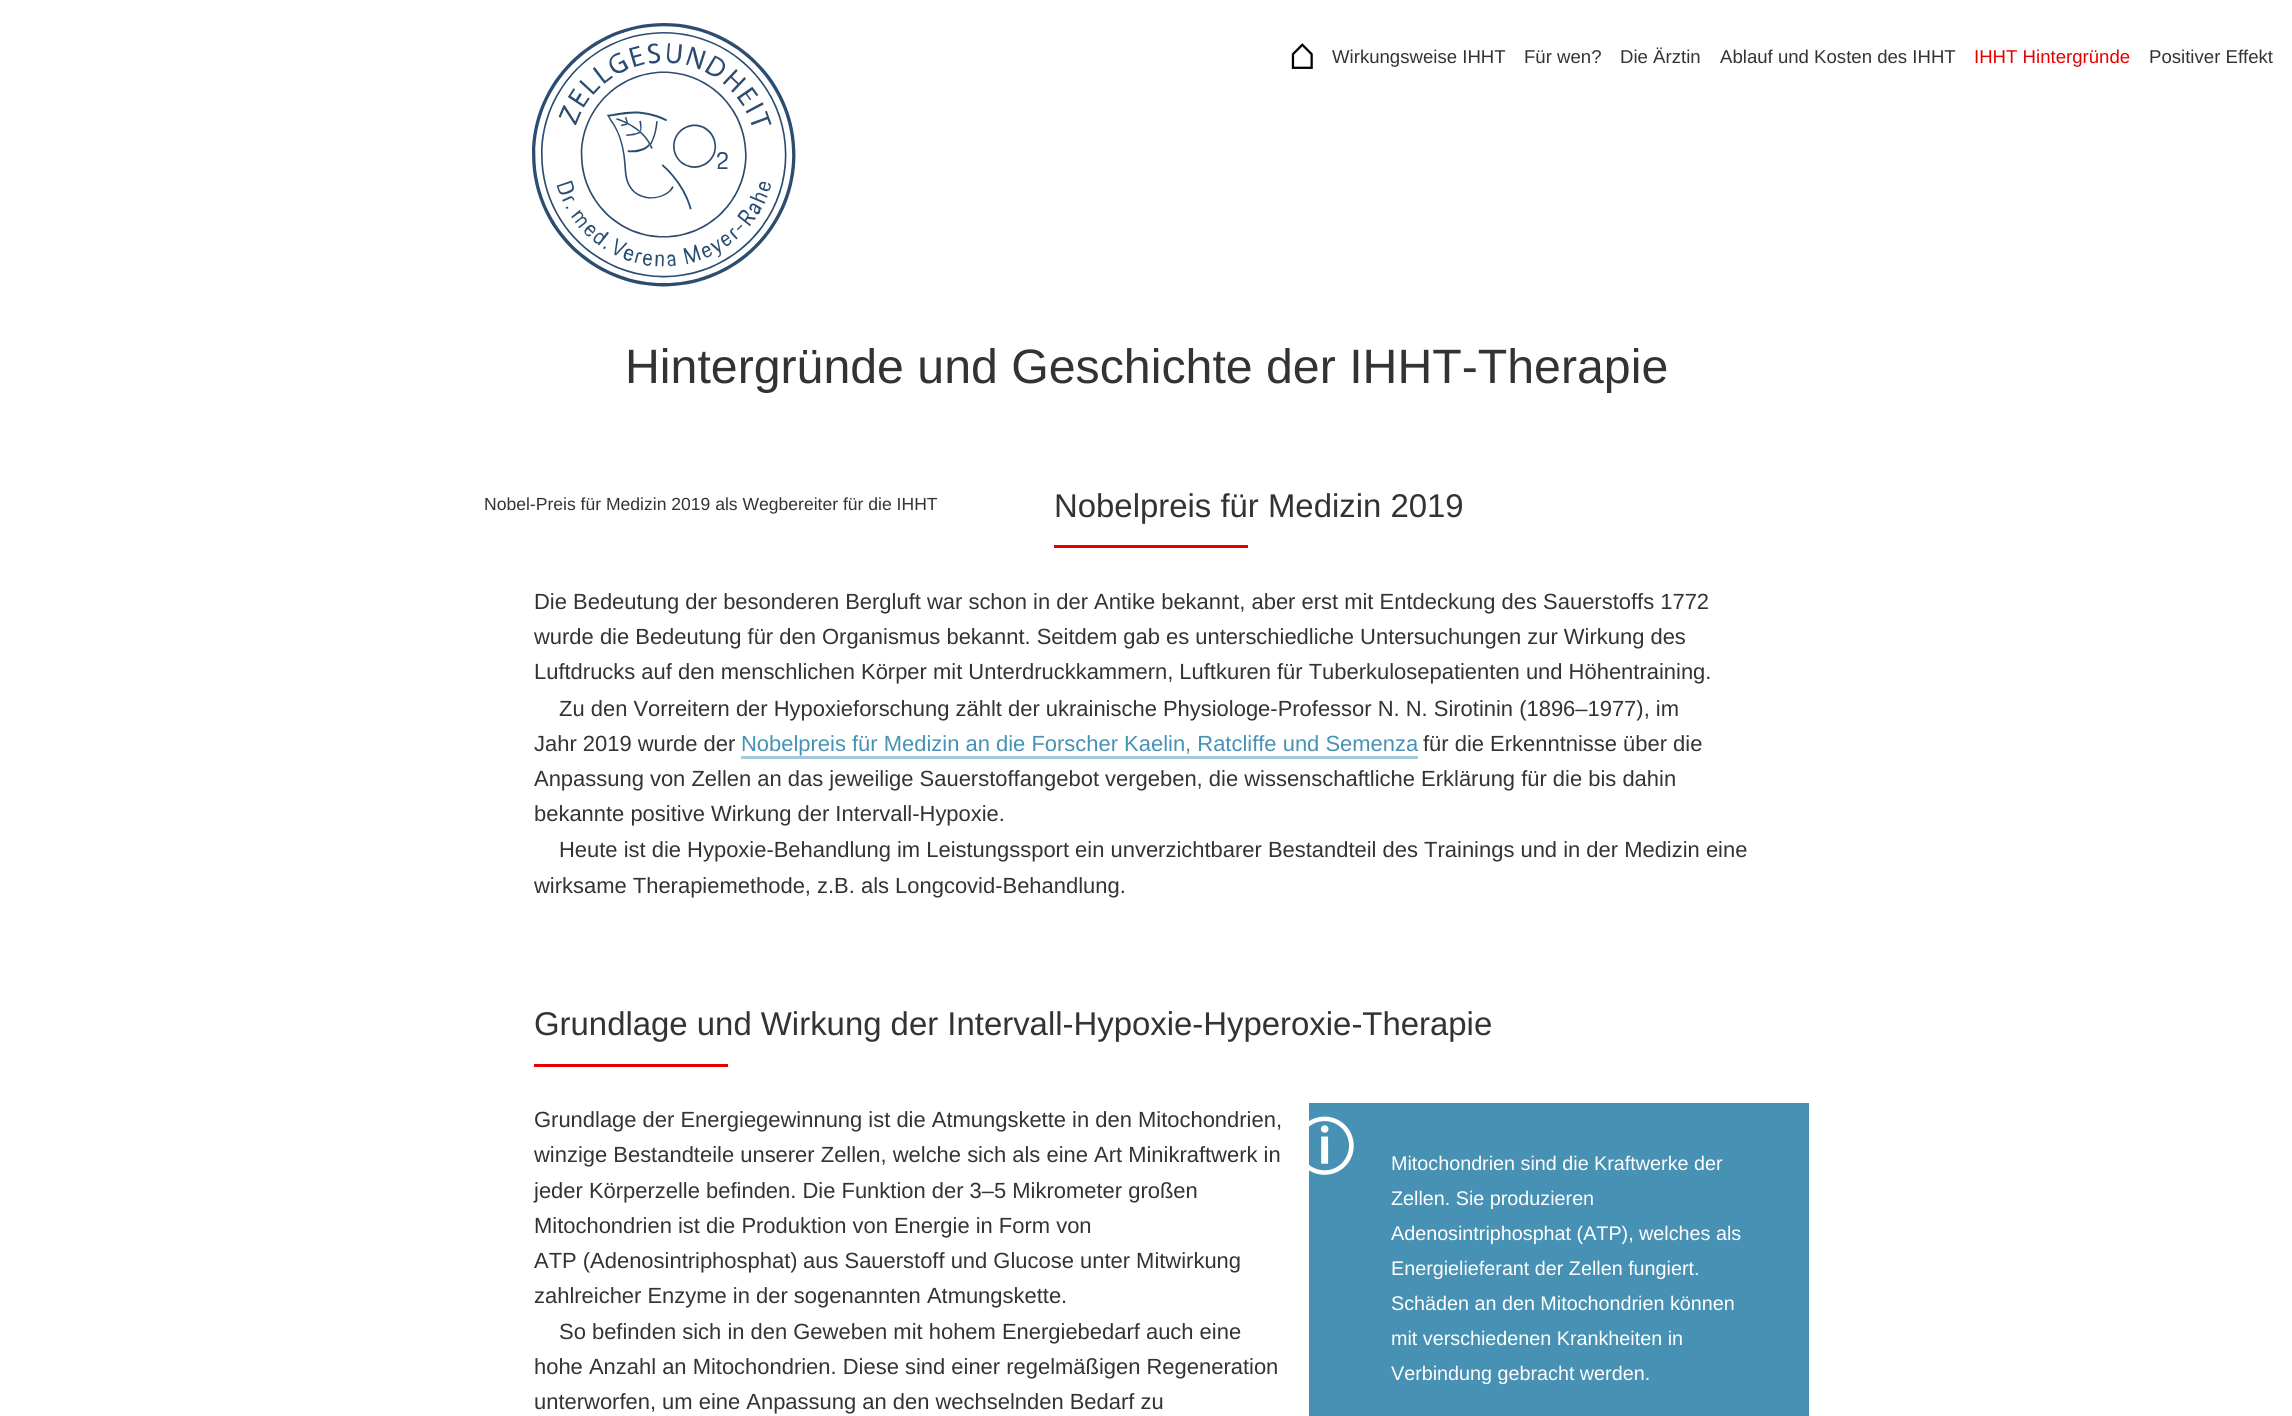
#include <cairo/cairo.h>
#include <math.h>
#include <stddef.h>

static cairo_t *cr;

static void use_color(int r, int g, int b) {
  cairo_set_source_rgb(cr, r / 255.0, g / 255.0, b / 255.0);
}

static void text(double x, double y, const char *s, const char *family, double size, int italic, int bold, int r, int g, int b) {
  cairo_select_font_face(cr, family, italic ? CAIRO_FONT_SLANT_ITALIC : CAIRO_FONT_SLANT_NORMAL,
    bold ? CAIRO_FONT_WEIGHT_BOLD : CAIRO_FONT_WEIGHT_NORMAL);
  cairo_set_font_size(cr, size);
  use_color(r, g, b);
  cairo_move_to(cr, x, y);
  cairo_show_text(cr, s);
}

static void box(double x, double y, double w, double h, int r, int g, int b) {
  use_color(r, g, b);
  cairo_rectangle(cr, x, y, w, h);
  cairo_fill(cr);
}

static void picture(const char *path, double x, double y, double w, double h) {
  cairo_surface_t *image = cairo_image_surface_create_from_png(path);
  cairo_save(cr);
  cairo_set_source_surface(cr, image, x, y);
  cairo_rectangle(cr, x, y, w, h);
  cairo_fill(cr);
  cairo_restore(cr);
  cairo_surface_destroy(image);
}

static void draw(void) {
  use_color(255, 255, 255);
  cairo_paint(cr);
  picture("img_01.png", 1291, 43, 22, 26);
  picture("img_02.png", 532, 23, 264, 264);
  box(1054, 545, 194, 3, 229, 0, 0);
  box(741, 756, 677, 3, 163, 201, 218);
  box(534, 1064, 194, 3, 229, 0, 0);
  box(1309, 1103, 500, 313, 71, 146, 180);
  picture("img_03.png", 1309, 1116, 45, 59);
  text(1332, 63, "Wirkungsweise IHHT", "Liberation Sans", 18.6, 0, 0, 51, 51, 51);
  text(1524, 63, "Für wen?", "Liberation Sans", 18.6, 0, 0, 51, 51, 51);
  text(1620, 63, "Die Ärztin", "Liberation Sans", 18.6, 0, 0, 51, 51, 51);
  text(1720, 63, "Ablauf und Kosten des IHHT", "Liberation Sans", 18.6, 0, 0, 51, 51, 51);
  text(1974, 63, "IHHT Hintergründe", "Liberation Sans", 18.6, 0, 0, 229, 0, 0);
  text(2149, 63, "Positiver Effekt", "Liberation Sans", 18.6, 0, 0, 51, 51, 51);
  text(625, 383, "Hintergründe und Geschichte der IHHT-Therapie", "Liberation Sans", 48.25, 0, 0, 51, 51, 51);
  text(484, 510, "Nobel-Preis für Medizin 2019 als Wegbereiter für die IHHT", "Liberation Sans", 17.55, 0, 0, 51, 51, 51);
  text(1054, 517, "Nobelpreis für Medizin 2019", "Liberation Sans", 32.9, 0, 0, 51, 51, 51);
  text(534, 609, "Die Bedeutung der besonderen Bergluft war schon in der Antike bekannt, aber erst mit Entdeckung des Sauerstoffs 1772", "Liberation Sans", 21.95, 0, 0, 51, 51, 51);
  text(534, 644, "wurde die Bedeutung für den Organismus bekannt. Seitdem gab es unterschiedliche Untersuchungen zur Wirkung des", "Liberation Sans", 21.95, 0, 0, 51, 51, 51);
  text(534, 679, "Luftdrucks auf den menschlichen Körper mit Unterdruckkammern, Luftkuren für Tuberkulosepatienten und Höhentraining.", "Liberation Sans", 21.95, 0, 0, 51, 51, 51);
  text(559, 716, "Zu den Vorreitern der Hypoxieforschung zählt der ukrainische Physiologe-Professor N. N. Sirotinin (1896–1977), im", "Liberation Sans", 21.95, 0, 0, 51, 51, 51);
  text(534, 751, "Jahr 2019 wurde der", "Liberation Sans", 21.95, 0, 0, 51, 51, 51);
  text(741, 751, "Nobelpreis für Medizin an die Forscher Kaelin, Ratcliffe und Semenza", "Liberation Sans", 21.95, 0, 0, 71, 146, 180);
  text(1423, 751, "für die Erkenntnisse über die", "Liberation Sans", 21.95, 0, 0, 51, 51, 51);
  text(534, 786, "Anpassung von Zellen an das jeweilige Sauerstoffangebot vergeben, die wissenschaftliche Erklärung für die bis dahin", "Liberation Sans", 21.95, 0, 0, 51, 51, 51);
  text(534, 821, "bekannte positive Wirkung der Intervall-Hypoxie.", "Liberation Sans", 21.95, 0, 0, 51, 51, 51);
  text(559, 857, "Heute ist die Hypoxie-Behandlung im Leistungssport ein unverzichtbarer Bestandteil des Trainings und in der Medizin eine", "Liberation Sans", 21.95, 0, 0, 51, 51, 51);
  text(534, 893, "wirksame Therapiemethode, z.B. als Longcovid-Behandlung.", "Liberation Sans", 21.95, 0, 0, 51, 51, 51);
  text(534, 1035, "Grundlage und Wirkung der Intervall-Hypoxie-Hyperoxie-Therapie", "Liberation Sans", 32.9, 0, 0, 51, 51, 51);
  text(534, 1127, "Grundlage der Energiegewinnung ist die Atmungskette in den Mitochondrien,", "Liberation Sans", 21.95, 0, 0, 51, 51, 51);
  text(534, 1162, "winzige Bestandteile unserer Zellen, welche sich als eine Art Minikraftwerk in", "Liberation Sans", 21.95, 0, 0, 51, 51, 51);
  text(534, 1198, "jeder Körperzelle befinden. Die Funktion der 3–5 Mikrometer großen", "Liberation Sans", 21.95, 0, 0, 51, 51, 51);
  text(534, 1233, "Mitochondrien ist die Produktion von Energie in Form von", "Liberation Sans", 21.95, 0, 0, 51, 51, 51);
  text(534, 1268, "ATP (Adenosintriphosphat)", "Liberation Sans", 21.95, 0, 0, 51, 51, 51);
  text(803, 1268, "aus Sauerstoff und Glucose unter Mitwirkung", "Liberation Sans", 21.95, 0, 0, 51, 51, 51);
  text(534, 1303, "zahlreicher Enzyme in der sogenannten Atmungskette.", "Liberation Sans", 21.95, 0, 0, 51, 51, 51);
  text(1391, 1170, "Mitochondrien sind die Kraftwerke der", "Liberation Sans", 19.75, 0, 0, 255, 255, 255);
  text(1391, 1205, "Zellen. Sie produzieren", "Liberation Sans", 19.75, 0, 0, 255, 255, 255);
  text(1391, 1240, "Adenosintriphosphat (ATP), welches als", "Liberation Sans", 19.75, 0, 0, 255, 255, 255);
  text(1391, 1275, "Energielieferant der Zellen fungiert.", "Liberation Sans", 19.75, 0, 0, 255, 255, 255);
  text(1391, 1310, "Schäden an den Mitochondrien können", "Liberation Sans", 19.75, 0, 0, 255, 255, 255);
  text(1391, 1345, "mit verschiedenen Krankheiten in", "Liberation Sans", 19.75, 0, 0, 255, 255, 255);
  text(1391, 1380, "Verbindung gebracht werden.", "Liberation Sans", 19.75, 0, 0, 255, 255, 255);
  text(559, 1339, "So befinden sich in den Geweben mit hohem Energiebedarf auch eine", "Liberation Sans", 21.95, 0, 0, 51, 51, 51);
  text(534, 1374, "hohe Anzahl an Mitochondrien. Diese sind einer regelmäßigen Regeneration", "Liberation Sans", 21.95, 0, 0, 51, 51, 51);
  text(534, 1409, "unterworfen, um eine Anpassung an den wechselnden Bedarf zu", "Liberation Sans", 21.95, 0, 0, 51, 51, 51);
}

int main(void) {
  cairo_surface_t *surface = cairo_image_surface_create(CAIRO_FORMAT_RGB24, 2292, 1416);
  cr = cairo_create(surface);
  cairo_font_options_t *options = cairo_font_options_create();
  cairo_font_options_set_hint_metrics(options, CAIRO_HINT_METRICS_OFF);
  cairo_font_options_set_hint_style(options, CAIRO_HINT_STYLE_NONE);
  cairo_set_font_options(cr, options);
  cairo_set_miter_limit(cr, 4);
  draw();
  cairo_surface_write_to_png(surface, "out.png");
  cairo_font_options_destroy(options);
  cairo_destroy(cr);
  cairo_surface_destroy(surface);
  return 0;
}
